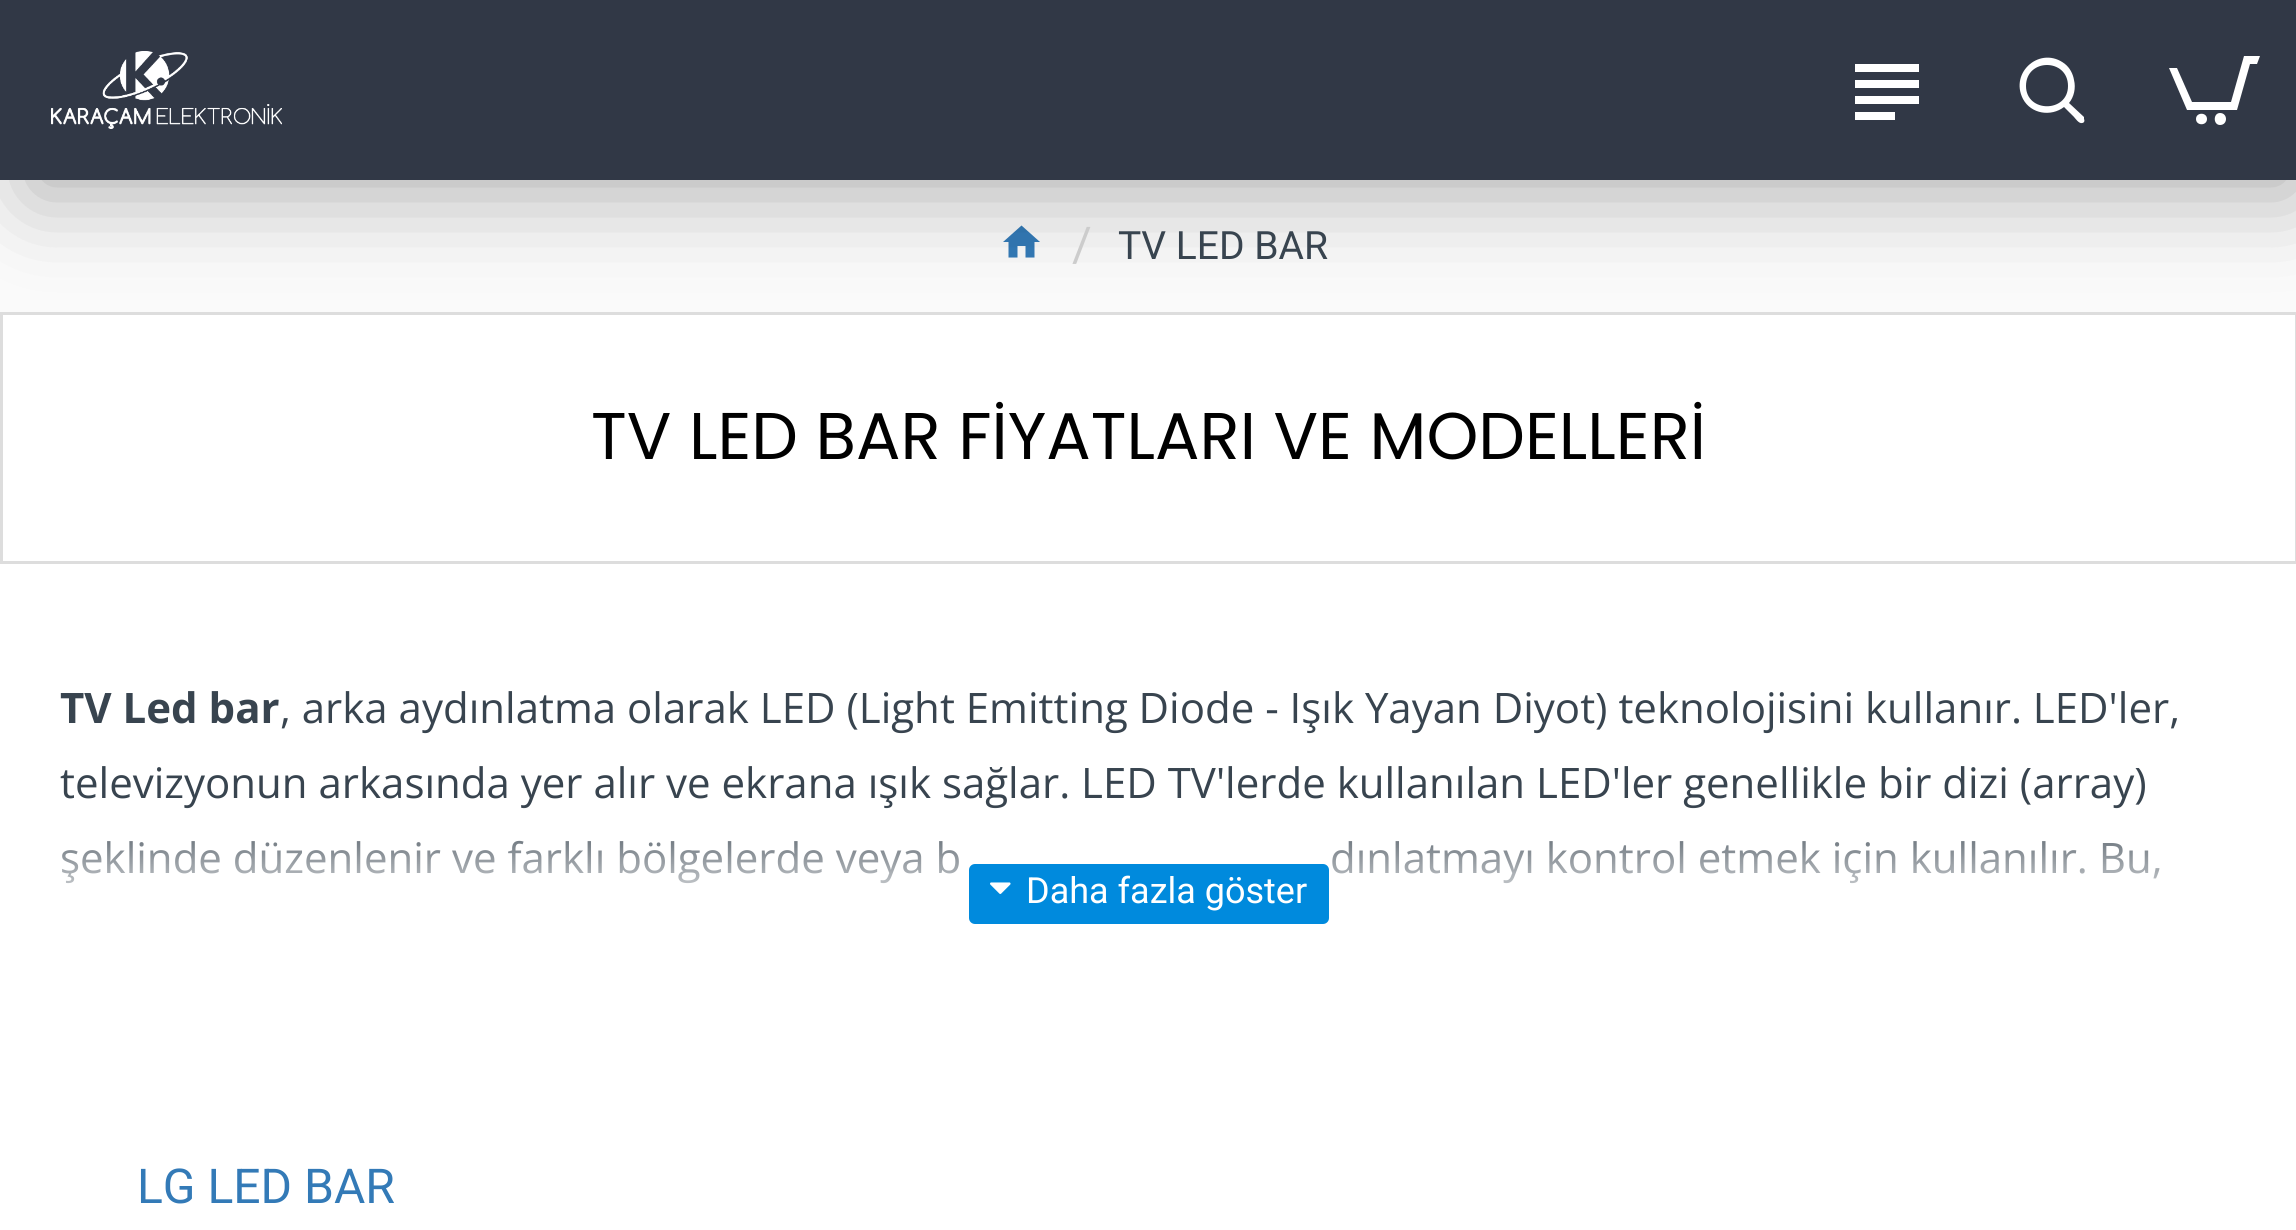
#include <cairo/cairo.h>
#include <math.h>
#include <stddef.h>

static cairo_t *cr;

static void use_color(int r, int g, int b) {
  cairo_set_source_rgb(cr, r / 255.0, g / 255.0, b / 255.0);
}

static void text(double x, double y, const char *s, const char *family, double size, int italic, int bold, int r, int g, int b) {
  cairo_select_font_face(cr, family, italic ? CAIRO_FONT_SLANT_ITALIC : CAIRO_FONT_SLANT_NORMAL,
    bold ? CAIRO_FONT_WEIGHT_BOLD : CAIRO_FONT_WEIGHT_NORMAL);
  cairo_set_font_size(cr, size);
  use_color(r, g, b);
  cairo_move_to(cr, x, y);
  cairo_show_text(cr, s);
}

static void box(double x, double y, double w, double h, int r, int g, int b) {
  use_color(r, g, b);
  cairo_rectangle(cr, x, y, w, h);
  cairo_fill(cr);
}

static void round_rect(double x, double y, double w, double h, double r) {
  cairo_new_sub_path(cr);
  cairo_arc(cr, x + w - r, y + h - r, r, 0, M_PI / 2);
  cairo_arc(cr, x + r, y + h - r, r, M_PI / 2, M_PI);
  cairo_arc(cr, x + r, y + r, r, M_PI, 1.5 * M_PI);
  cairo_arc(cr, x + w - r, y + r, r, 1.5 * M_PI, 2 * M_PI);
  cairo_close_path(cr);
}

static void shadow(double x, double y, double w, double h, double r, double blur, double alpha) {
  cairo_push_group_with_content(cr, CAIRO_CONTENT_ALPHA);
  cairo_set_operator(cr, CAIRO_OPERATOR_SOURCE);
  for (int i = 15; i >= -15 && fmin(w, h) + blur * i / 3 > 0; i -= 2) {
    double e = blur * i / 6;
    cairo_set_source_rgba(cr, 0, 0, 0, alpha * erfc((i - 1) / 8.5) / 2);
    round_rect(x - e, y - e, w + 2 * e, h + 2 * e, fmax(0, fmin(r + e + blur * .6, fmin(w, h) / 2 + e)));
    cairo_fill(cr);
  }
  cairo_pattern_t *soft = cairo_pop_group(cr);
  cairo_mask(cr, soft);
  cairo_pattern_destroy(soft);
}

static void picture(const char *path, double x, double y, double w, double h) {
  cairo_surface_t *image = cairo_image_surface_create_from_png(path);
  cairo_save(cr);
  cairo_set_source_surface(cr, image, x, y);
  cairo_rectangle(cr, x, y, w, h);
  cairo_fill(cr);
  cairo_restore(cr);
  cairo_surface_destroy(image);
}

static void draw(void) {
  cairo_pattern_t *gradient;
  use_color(255, 255, 255);
  cairo_paint(cr);
  box(0, 180, 2296, 132, 250, 250, 250);
  use_color(51, 122, 183);
  cairo_new_path(cr);
  cairo_move_to(cr, 1017.5, 257.5);
  cairo_line_to(cr, 1008.5, 257.5);
  cairo_line_to(cr, 1008.5, 242);
  cairo_line_to(cr, 1003, 242);
  cairo_line_to(cr, 1021.5, 225.5);
  cairo_line_to(cr, 1040, 242);
  cairo_line_to(cr, 1034.5, 242);
  cairo_line_to(cr, 1034.5, 257.5);
  cairo_line_to(cr, 1025.5, 257.5);
  cairo_line_to(cr, 1025.5, 246);
  cairo_line_to(cr, 1017.5, 246);
  cairo_close_path(cr);
  cairo_fill(cr);
  cairo_rectangle(cr, 1.5, 313.5, 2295, 249);
  use_color(221, 221, 221);
  cairo_set_line_width(cr, 3);
  cairo_stroke(cr);
  use_color(0, 0, 0);
  shadow(30, 45, 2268, 150, 0, 45, 0.3);
  box(0, 0, 2296, 180, 49, 56, 70);
  picture("img_01.png", 51, 51, 231, 78);
  use_color(255, 255, 255);
  cairo_new_path(cr);
  cairo_move_to(cr, 1855, 64);
  cairo_line_to(cr, 1919, 64);
  cairo_line_to(cr, 1919, 72);
  cairo_line_to(cr, 1855, 72);
  cairo_close_path(cr);
  cairo_move_to(cr, 1855, 104);
  cairo_line_to(cr, 1855, 96);
  cairo_line_to(cr, 1919, 96);
  cairo_line_to(cr, 1919, 104);
  cairo_close_path(cr);
  cairo_move_to(cr, 1919, 80);
  cairo_line_to(cr, 1919, 88);
  cairo_line_to(cr, 1855, 88);
  cairo_line_to(cr, 1855, 80);
  cairo_close_path(cr);
  cairo_move_to(cr, 1895, 112);
  cairo_line_to(cr, 1895, 120);
  cairo_line_to(cr, 1855, 120);
  cairo_line_to(cr, 1855, 112);
  cairo_close_path(cr);
  cairo_fill(cr);
  cairo_new_path(cr);
  cairo_move_to(cr, 2084, 117);
  cairo_line_to(cr, 2069, 103);
  cairo_curve_to(cr, 2074, 97, 2076, 88, 2074, 80);
  cairo_curve_to(cr, 2073, 74, 2070, 68, 2065, 64);
  cairo_curve_to(cr, 2041, 45, 2009, 72, 2023, 99);
  cairo_curve_to(cr, 2031, 114, 2051, 117, 2064, 107);
  cairo_line_to(cr, 2074, 117);
  cairo_curve_to(cr, 2075, 118, 2079, 124, 2082, 123);
  cairo_curve_to(cr, 2084, 123, 2085, 121, 2084, 119);
  cairo_close_path(cr);
  cairo_move_to(cr, 2026, 86);
  cairo_curve_to(cr, 2026, 58, 2068, 58, 2068, 86);
  cairo_curve_to(cr, 2068, 113, 2026, 113, 2026, 86);
  cairo_close_path(cr);
  cairo_fill(cr);
  cairo_new_path(cr);
  cairo_move_to(cr, 2207, 119);
  cairo_curve_to(cr, 2207, 126, 2196, 126, 2196, 119);
  cairo_curve_to(cr, 2196, 112, 2207, 112, 2207, 119);
  cairo_close_path(cr);
  cairo_move_to(cr, 2220, 113);
  cairo_curve_to(cr, 2213, 113, 2213, 125, 2220, 125);
  cairo_curve_to(cr, 2228, 125, 2228, 113, 2220, 113);
  cairo_close_path(cr);
  cairo_move_to(cr, 2244, 56);
  cairo_line_to(cr, 2231, 102);
  cairo_line_to(cr, 2192, 102);
  cairo_line_to(cr, 2177, 68);
  cairo_line_to(cr, 2169, 68);
  cairo_line_to(cr, 2187, 110);
  cairo_line_to(cr, 2237, 110);
  cairo_line_to(cr, 2250, 64);
  cairo_line_to(cr, 2257, 64);
  cairo_line_to(cr, 2260, 56);
  cairo_close_path(cr);
  cairo_fill(cr);
  text(1072, 261, "/", "Roboto", 48, 0, 0, 204, 204, 204);
  text(1118, 259, "TV LED BAR", "Roboto", 39, 0, 0, 56, 68, 79);
  text(591, 459, "TV LED BAR FİYATLARI VE MODELLERİ", "Poppins", 66, 0, 0, 0, 0, 0);
  text(60, 723, "TV Led bar", "Open Sans", 42, 0, 1, 56, 68, 79);
  text(280, 723, ", arka aydınlatma olarak LED (Light Emitting Diode - Işık Yayan Diyot) teknolojisini kullanır. LED'ler,", "Open Sans", 42, 0, 0, 56, 68, 79);
  text(60, 798, "televizyonun arkasında yer alır ve ekrana ışık sağlar. LED TV'lerde kullanılan LED'ler genellikle bir dizi (array)", "Open Sans", 42, 0, 0, 56, 68, 79);
  text(60, 873, "şeklinde düzenlenir ve farklı bölgelerde veya b", "Open Sans", 42, 0, 0, 56, 68, 79);
  text(1330, 873, "dınlatmayı kontrol etmek için kullanılır. Bu,", "Open Sans", 42, 0, 0, 56, 68, 79);
  gradient = cairo_pattern_create_linear(1149, 804, 1149, 924);
  cairo_pattern_add_color_stop_rgba(gradient, 0, 1, 1, 1, 0);
  cairo_pattern_add_color_stop_rgba(gradient, 1, 1, 1, 1, 1);
  cairo_set_source(cr, gradient);
  cairo_pattern_destroy(gradient);
  cairo_rectangle(cr, 62, 807, 2098, 77);
  cairo_fill(cr);
  use_color(0, 138, 221);
  round_rect(969, 864, 360, 60, 6);
  cairo_fill(cr);
  picture("img_02.png", 990, 882, 21, 12);
  text(1026, 903, "Daha fazla göster", "Roboto", 36, 0, 0, 255, 255, 255);
  text(137, 1203, "LG LED BAR", "Roboto", 48, 0, 0, 51, 122, 183);
}

int main(void) {
  cairo_surface_t *surface = cairo_image_surface_create(CAIRO_FORMAT_RGB24, 2296, 1230);
  cr = cairo_create(surface);
  cairo_font_options_t *options = cairo_font_options_create();
  cairo_font_options_set_hint_metrics(options, CAIRO_HINT_METRICS_OFF);
  cairo_font_options_set_hint_style(options, CAIRO_HINT_STYLE_NONE);
  cairo_set_font_options(cr, options);
  cairo_set_miter_limit(cr, 4);
  draw();
  cairo_surface_write_to_png(surface, "out.png");
  cairo_font_options_destroy(options);
  cairo_destroy(cr);
  cairo_surface_destroy(surface);
  return 0;
}
